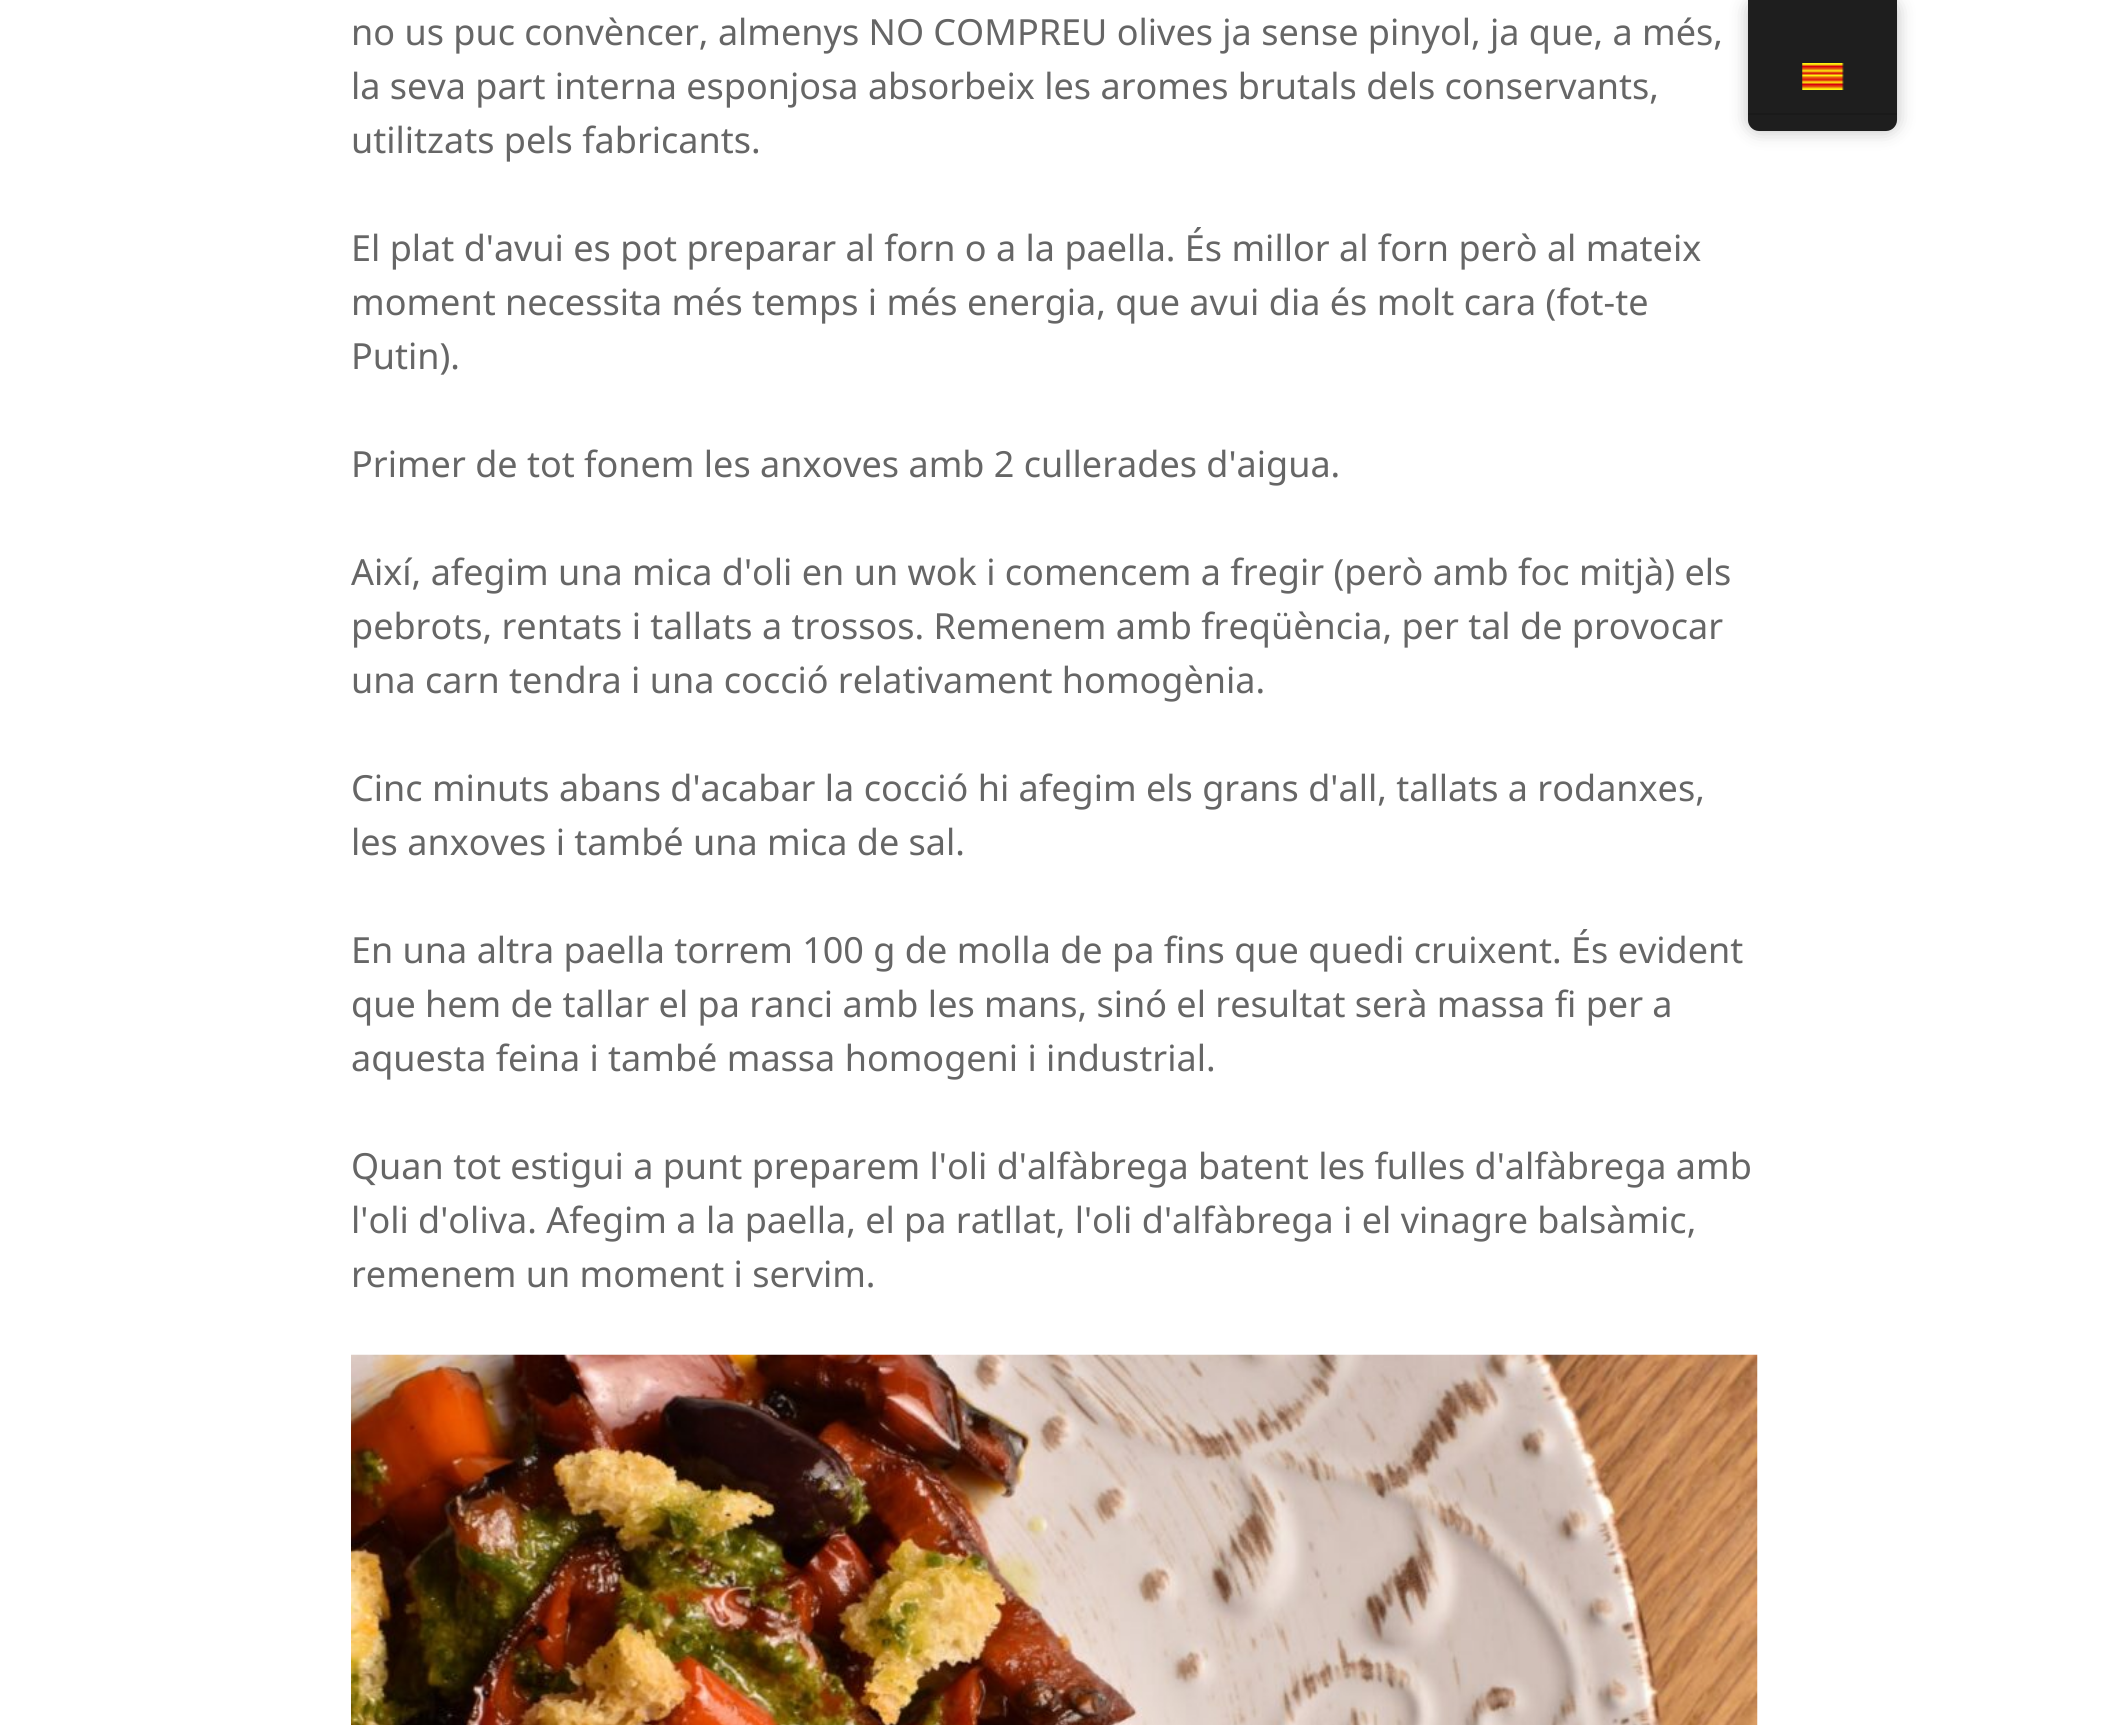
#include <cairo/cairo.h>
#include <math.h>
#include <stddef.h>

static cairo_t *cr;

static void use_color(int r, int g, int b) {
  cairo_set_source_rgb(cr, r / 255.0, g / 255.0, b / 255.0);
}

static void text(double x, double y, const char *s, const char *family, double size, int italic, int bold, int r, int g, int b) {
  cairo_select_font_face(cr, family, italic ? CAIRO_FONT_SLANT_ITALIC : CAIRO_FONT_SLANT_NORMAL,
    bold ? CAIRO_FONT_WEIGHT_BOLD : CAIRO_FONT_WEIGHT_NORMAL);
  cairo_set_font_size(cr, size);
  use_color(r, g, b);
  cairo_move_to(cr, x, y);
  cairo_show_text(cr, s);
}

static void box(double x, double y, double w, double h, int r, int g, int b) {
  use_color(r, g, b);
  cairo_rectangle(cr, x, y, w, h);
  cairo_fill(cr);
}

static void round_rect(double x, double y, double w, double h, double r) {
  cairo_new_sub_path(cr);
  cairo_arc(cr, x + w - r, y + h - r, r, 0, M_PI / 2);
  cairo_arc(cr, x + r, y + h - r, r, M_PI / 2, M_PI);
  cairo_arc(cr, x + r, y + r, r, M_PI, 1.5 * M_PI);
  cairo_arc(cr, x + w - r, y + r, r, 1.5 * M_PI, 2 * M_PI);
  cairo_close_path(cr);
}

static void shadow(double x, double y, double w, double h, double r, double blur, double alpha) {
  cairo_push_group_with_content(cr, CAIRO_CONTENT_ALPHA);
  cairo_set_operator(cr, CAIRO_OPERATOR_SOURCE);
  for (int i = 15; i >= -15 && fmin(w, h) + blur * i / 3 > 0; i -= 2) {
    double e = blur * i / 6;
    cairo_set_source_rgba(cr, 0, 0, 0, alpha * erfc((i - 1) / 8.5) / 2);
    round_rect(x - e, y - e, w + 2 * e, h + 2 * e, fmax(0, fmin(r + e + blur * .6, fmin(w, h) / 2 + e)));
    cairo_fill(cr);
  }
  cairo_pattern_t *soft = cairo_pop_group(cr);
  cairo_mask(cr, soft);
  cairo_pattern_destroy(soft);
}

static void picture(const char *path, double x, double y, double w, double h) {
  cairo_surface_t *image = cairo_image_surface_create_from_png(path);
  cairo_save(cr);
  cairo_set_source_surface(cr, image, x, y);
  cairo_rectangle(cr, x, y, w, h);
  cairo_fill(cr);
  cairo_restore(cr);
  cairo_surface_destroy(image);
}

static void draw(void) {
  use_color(255, 255, 255);
  cairo_paint(cr);
  picture("img_01.png", 351, 1354, 1407, 371);
  use_color(0, 0, 0);
  shadow(1748, 0, 149, 131, 11, 9, 0.25);
  use_color(30, 30, 30);
  cairo_new_path(cr);
  cairo_move_to(cr, 1748, 0);
  cairo_line_to(cr, 1897, 0);
  cairo_line_to(cr, 1897, 120);
  cairo_curve_to(cr, 1897, 126, 1892, 131, 1886, 131);
  cairo_line_to(cr, 1759, 131);
  cairo_curve_to(cr, 1753, 131, 1748, 126, 1748, 120);
  cairo_close_path(cr);
  cairo_fill(cr);
  box(1748, 113, 149, 2, 26, 26, 26);
  picture("img_02.png", 1802, 63, 42, 27);
  text(351, 45, "no us puc convèncer, almenys NO COMPREU olives ja sense pinyol, ja que, a més,", "Noto Sans", 36, 0, 0, 102, 102, 102);
  text(351, 99, "la seva part interna esponjosa absorbeix les aromes brutals dels conservants,", "Noto Sans", 36, 0, 0, 102, 102, 102);
  text(351, 153, "utilitzats pels fabricants.", "Noto Sans", 36, 0, 0, 102, 102, 102);
  text(351, 261, "El plat d'avui es pot preparar al forn o a la paella. És millor al forn però al mateix", "Noto Sans", 36, 0, 0, 102, 102, 102);
  text(351, 315, "moment necessita més temps i més energia, que avui dia és molt cara (fot-te", "Noto Sans", 36, 0, 0, 102, 102, 102);
  text(351, 369, "Putin).", "Noto Sans", 36, 0, 0, 102, 102, 102);
  text(351, 477, "Primer de tot fonem les anxoves amb 2 cullerades d'aigua.", "Noto Sans", 36, 0, 0, 102, 102, 102);
  text(351, 585, "Així, afegim una mica d'oli en un wok i comencem a fregir (però amb foc mitjà) els", "Noto Sans", 36, 0, 0, 102, 102, 102);
  text(351, 639, "pebrots, rentats i tallats a trossos. Remenem amb freqüència, per tal de provocar", "Noto Sans", 36, 0, 0, 102, 102, 102);
  text(351, 693, "una carn tendra i una cocció relativament homogènia.", "Noto Sans", 36, 0, 0, 102, 102, 102);
  text(351, 801, "Cinc minuts abans d'acabar la cocció hi afegim els grans d'all, tallats a rodanxes,", "Noto Sans", 36, 0, 0, 102, 102, 102);
  text(351, 855, "les anxoves i també una mica de sal.", "Noto Sans", 36, 0, 0, 102, 102, 102);
  text(351, 963, "En una altra paella torrem 100 g de molla de pa fins que quedi cruixent. És evident", "Noto Sans", 36, 0, 0, 102, 102, 102);
  text(351, 1017, "que hem de tallar el pa ranci amb les mans, sinó el resultat serà massa fi per a", "Noto Sans", 36, 0, 0, 102, 102, 102);
  text(351, 1071, "aquesta feina i també massa homogeni i industrial.", "Noto Sans", 36, 0, 0, 102, 102, 102);
  text(351, 1179, "Quan tot estigui a punt preparem l'oli d'alfàbrega batent les fulles d'alfàbrega amb", "Noto Sans", 36, 0, 0, 102, 102, 102);
  text(351, 1233, "l'oli d'oliva. Afegim a la paella, el pa ratllat, l'oli d'alfàbrega i el vinagre balsàmic,", "Noto Sans", 36, 0, 0, 102, 102, 102);
  text(351, 1287, "remenem un moment i servim.", "Noto Sans", 36, 0, 0, 102, 102, 102);
}

int main(void) {
  cairo_surface_t *surface = cairo_image_surface_create(CAIRO_FORMAT_RGB24, 2107, 1725);
  cr = cairo_create(surface);
  cairo_font_options_t *options = cairo_font_options_create();
  cairo_font_options_set_hint_metrics(options, CAIRO_HINT_METRICS_OFF);
  cairo_font_options_set_hint_style(options, CAIRO_HINT_STYLE_NONE);
  cairo_set_font_options(cr, options);
  cairo_set_miter_limit(cr, 4);
  draw();
  cairo_surface_write_to_png(surface, "out.png");
  cairo_font_options_destroy(options);
  cairo_destroy(cr);
  cairo_surface_destroy(surface);
  return 0;
}
